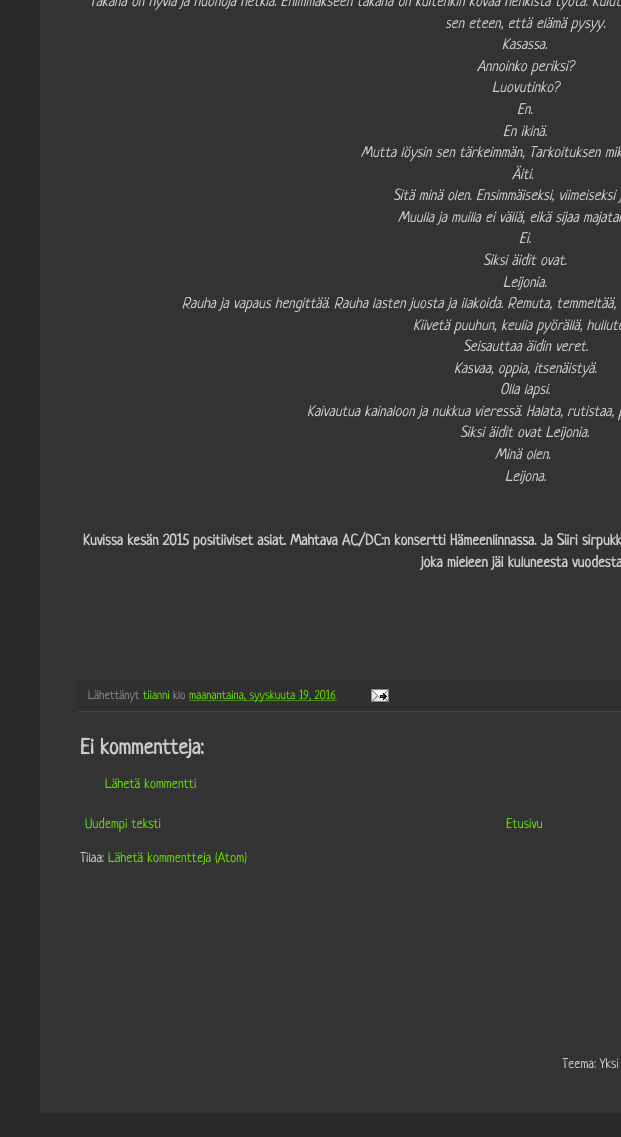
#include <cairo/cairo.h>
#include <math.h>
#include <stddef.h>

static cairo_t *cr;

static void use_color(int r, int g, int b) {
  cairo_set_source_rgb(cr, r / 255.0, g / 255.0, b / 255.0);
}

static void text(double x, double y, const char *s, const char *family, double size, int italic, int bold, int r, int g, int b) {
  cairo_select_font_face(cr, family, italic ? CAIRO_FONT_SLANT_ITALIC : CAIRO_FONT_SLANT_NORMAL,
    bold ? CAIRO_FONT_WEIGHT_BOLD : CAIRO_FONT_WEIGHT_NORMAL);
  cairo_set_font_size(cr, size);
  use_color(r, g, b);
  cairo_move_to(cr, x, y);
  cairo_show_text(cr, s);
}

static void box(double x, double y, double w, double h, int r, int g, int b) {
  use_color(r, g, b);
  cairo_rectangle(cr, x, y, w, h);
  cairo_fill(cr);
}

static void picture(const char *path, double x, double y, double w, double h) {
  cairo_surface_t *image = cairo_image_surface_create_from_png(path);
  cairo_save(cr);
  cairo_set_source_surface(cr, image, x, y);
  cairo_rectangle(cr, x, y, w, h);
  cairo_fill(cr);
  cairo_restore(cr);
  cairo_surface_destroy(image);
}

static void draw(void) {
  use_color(41, 41, 41);
  cairo_paint(cr);
  box(40, 0, 581, 1113, 51, 51, 51);
  box(78, 681, 543, 30, 48, 48, 48);
  box(78, 711, 543, 1, 68, 68, 68);
  cairo_new_path(cr);
  cairo_move_to(cr, 189.5, 700.5);
  cairo_line_to(cr, 336.5, 700.5);
  use_color(100, 221, 0);
  cairo_set_line_width(cr, 1);
  cairo_set_dash(cr, (double[]){1, 1}, 2, 0);
  cairo_stroke(cr);
  picture("img_01.png", 371, 689, 18, 13);
  text(89, 6, "Takana on hyviä ja huonoja hetkiä. Enimmäkseen takana on kuitenkin kovaa henkistä työtä. Kulut", "Neucha", 15.4, 1, 0, 204, 204, 204);
  text(445, 28, "sen eteen, että elämä pysyy.", "Neucha", 15.4, 1, 0, 204, 204, 204);
  text(502, 49, "Kasassa.", "Neucha", 15.4, 1, 0, 204, 204, 204);
  text(477, 71, "Annoinko periksi?", "Neucha", 15.4, 1, 0, 204, 204, 204);
  text(492, 92, "Luovutinko?", "Neucha", 15.4, 1, 0, 204, 204, 204);
  text(517, 114, "En.", "Neucha", 15.4, 1, 0, 204, 204, 204);
  text(503, 136, "En ikinä.", "Neucha", 15.4, 1, 0, 204, 204, 204);
  text(361, 157, "Mutta löysin sen tärkeimmän, Tarkoituksen mik", "Neucha", 15.4, 1, 0, 204, 204, 204);
  text(512, 179, "Äiti.", "Neucha", 15.4, 1, 0, 204, 204, 204);
  text(393, 200, "Sitä minä olen. Ensimmäiseksi, viimeiseksi j", "Neucha", 15.4, 1, 0, 204, 204, 204);
  text(398, 222, "Muulla ja muilla ei väliä, eikä sijaa majatal", "Neucha", 15.4, 1, 0, 204, 204, 204);
  text(519, 243, "Ei.", "Neucha", 15.4, 1, 0, 204, 204, 204);
  text(483, 265, "Siksi äidit ovat.", "Neucha", 15.4, 1, 0, 204, 204, 204);
  text(503, 287, "Leijonia.", "Neucha", 15.4, 1, 0, 204, 204, 204);
  text(182, 308, "Rauha ja vapaus hengittää. Rauha lasten juosta ja ilakoida. Remuta, temmeltää,", "Neucha", 15.4, 1, 0, 204, 204, 204);
  text(413, 330, "Kiivetä puuhun, keulia pyörällä, hullute", "Neucha", 15.4, 1, 0, 204, 204, 204);
  text(463, 351, "Seisauttaa äidin veret.", "Neucha", 15.4, 1, 0, 204, 204, 204);
  text(454, 373, "Kasvaa, oppia, itsenäistyä.", "Neucha", 15.4, 1, 0, 204, 204, 204);
  text(500, 394, "Olla lapsi.", "Neucha", 15.4, 1, 0, 204, 204, 204);
  text(307, 416, "Kaivautua kainaloon ja nukkua vieressä. Halata, rutistaa, p", "Neucha", 15.4, 1, 0, 204, 204, 204);
  text(460, 437, "Siksi äidit ovat Leijonia.", "Neucha", 15.4, 1, 0, 204, 204, 204);
  text(495, 459, "Minä olen.", "Neucha", 15.4, 1, 0, 204, 204, 204);
  text(505, 481, "Leijona.", "Neucha", 15.4, 1, 0, 204, 204, 204);
  text(83, 545, "Kuvissa kesän 2015 positiiviset asiat. Mahtava AC/DC:n konsertti Hämeenlinnassa. Ja Siiri sirpukk", "Neucha", 15.4, 0, 1, 204, 204, 204);
  text(421, 567, "joka mieleen jäi kuluneesta vuodesta", "Neucha", 15.4, 0, 1, 204, 204, 204);
  text(88, 699, "Lähettänyt", "Neucha", 12.6, 0, 0, 136, 136, 136);
  text(143, 699, "tiianni", "Neucha", 12.6, 0, 0, 100, 221, 0);
  text(173, 699, "klo", "Neucha", 12.6, 0, 0, 136, 136, 136);
  text(189, 699, "maanantaina, syyskuuta 19, 2016", "Neucha", 12.6, 0, 0, 100, 221, 0);
  text(80, 754, "Ei kommentteja:", "Neucha", 22, 0, 1, 204, 204, 204);
  text(105, 788, "Lähetä kommentti", "Neucha", 14, 0, 0, 100, 221, 0);
  text(85, 828, "Uudempi teksti", "Neucha", 14, 0, 0, 100, 221, 0);
  text(506, 828, "Etusivu", "Neucha", 14, 0, 0, 100, 221, 0);
  text(80, 862, "Tilaa:", "Neucha", 14, 0, 0, 204, 204, 204);
  text(108, 862, "Lähetä kommentteja (Atom)", "Neucha", 14, 0, 0, 100, 221, 0);
  text(562, 1068, "Teema: Yksi", "Neucha", 14, 0, 0, 204, 204, 204);
}

int main(void) {
  cairo_surface_t *surface = cairo_image_surface_create(CAIRO_FORMAT_RGB24, 621, 1137);
  cr = cairo_create(surface);
  cairo_font_options_t *options = cairo_font_options_create();
  cairo_font_options_set_hint_metrics(options, CAIRO_HINT_METRICS_OFF);
  cairo_font_options_set_hint_style(options, CAIRO_HINT_STYLE_NONE);
  cairo_set_font_options(cr, options);
  cairo_set_miter_limit(cr, 4);
  draw();
  cairo_surface_write_to_png(surface, "out.png");
  cairo_font_options_destroy(options);
  cairo_destroy(cr);
  cairo_surface_destroy(surface);
  return 0;
}
